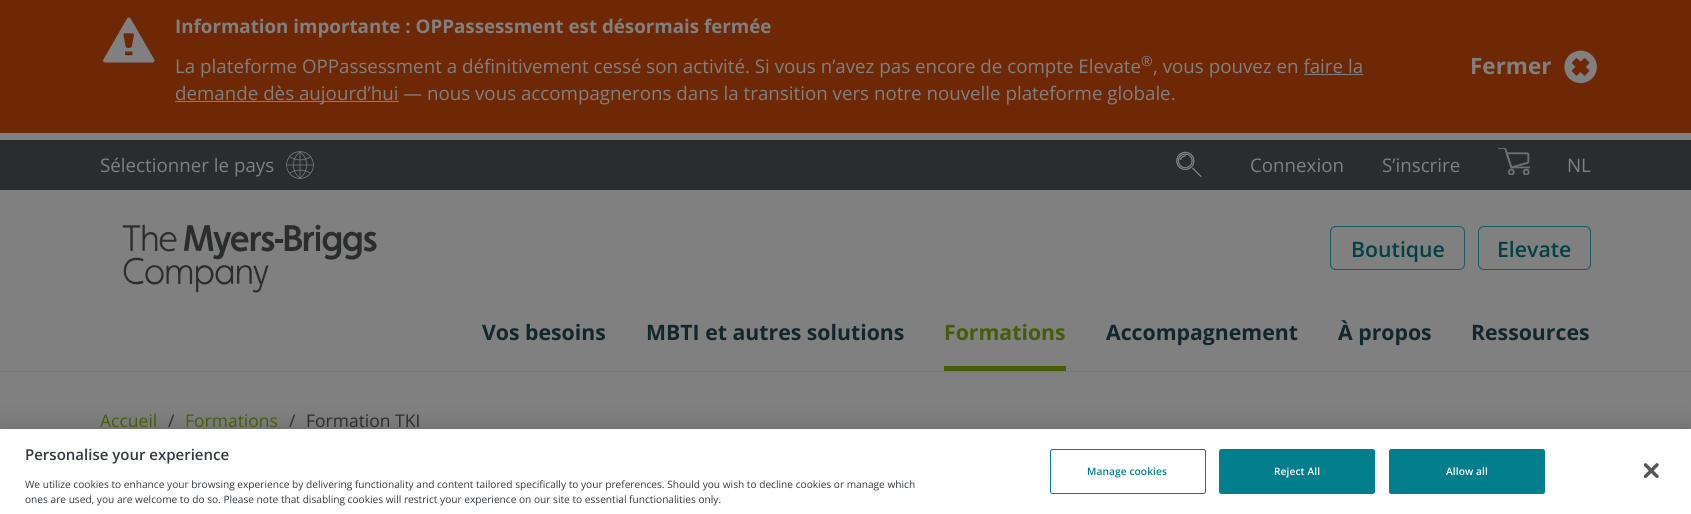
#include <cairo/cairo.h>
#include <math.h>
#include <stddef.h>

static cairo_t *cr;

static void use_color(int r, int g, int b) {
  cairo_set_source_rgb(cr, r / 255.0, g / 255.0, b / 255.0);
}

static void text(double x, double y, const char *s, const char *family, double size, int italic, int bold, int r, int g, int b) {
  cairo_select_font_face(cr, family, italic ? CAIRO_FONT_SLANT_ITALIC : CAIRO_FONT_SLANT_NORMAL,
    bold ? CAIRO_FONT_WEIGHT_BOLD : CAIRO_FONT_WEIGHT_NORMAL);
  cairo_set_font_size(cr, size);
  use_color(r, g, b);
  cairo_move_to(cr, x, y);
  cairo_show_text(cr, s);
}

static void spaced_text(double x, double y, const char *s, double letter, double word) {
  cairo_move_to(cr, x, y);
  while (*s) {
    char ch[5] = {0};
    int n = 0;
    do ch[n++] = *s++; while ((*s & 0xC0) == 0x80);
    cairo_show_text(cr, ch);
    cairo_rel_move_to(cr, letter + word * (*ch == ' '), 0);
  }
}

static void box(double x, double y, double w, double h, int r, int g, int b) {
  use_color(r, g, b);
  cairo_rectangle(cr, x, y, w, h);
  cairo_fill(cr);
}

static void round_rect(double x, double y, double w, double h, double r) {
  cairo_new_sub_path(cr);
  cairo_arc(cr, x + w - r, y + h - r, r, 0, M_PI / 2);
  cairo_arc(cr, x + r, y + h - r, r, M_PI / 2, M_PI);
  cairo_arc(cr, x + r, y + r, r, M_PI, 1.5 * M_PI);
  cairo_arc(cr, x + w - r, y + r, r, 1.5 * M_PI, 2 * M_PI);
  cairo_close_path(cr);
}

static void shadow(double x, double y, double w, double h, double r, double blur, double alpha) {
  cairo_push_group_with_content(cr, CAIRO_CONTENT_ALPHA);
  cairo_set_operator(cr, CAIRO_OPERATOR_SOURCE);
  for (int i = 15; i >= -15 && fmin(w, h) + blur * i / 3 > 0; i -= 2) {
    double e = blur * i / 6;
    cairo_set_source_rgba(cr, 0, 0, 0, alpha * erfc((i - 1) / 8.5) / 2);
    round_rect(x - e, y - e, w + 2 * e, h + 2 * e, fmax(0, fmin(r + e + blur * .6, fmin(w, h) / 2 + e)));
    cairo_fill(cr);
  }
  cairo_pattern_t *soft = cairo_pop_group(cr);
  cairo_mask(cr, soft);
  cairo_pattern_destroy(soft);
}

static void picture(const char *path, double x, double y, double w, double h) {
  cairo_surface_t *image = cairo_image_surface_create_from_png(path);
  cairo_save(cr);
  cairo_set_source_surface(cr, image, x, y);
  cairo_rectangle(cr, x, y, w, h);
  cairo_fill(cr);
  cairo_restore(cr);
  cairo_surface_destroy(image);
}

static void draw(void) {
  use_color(128, 128, 128);
  cairo_paint(cr);
  box(0, 0, 1691, 133, 110, 40, 5);
  picture("img_01.png", 103, 17, 52, 46);
  box(1304, 74, 59, 1, 128, 128, 128);
  box(175, 101, 224, 1, 128, 128, 128);
  picture("img_02.png", 1564, 50, 33, 34);
  box(0, 371, 1691, 1, 120, 119, 119);
  box(0, 140, 1691, 50, 42, 44, 46);
  picture("img_03.png", 286, 151, 28, 28);
  picture("img_04.png", 1176, 151, 26, 26);
  picture("img_05.png", 1498, 148, 32, 27);
  picture("img_06.png", 122, 224, 255, 69);
  round_rect(1330.5, 226.5, 134, 43, 5.5);
  use_color(16, 93, 101);
  cairo_set_line_width(cr, 1);
  cairo_stroke(cr);
  round_rect(1478.5, 226.5, 112, 43, 5.5);
  cairo_stroke(cr);
  box(944, 366, 122, 5, 70, 92, 8);
  use_color(0, 0, 0);
  shadow(0, 429, 1691, 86, 0, 11, 0.2);
  box(0, 429, 1691, 85, 255, 255, 255);
  round_rect(1050.5, 449.5, 155, 44, 2);
  use_color(3, 126, 140);
  cairo_stroke(cr);
  round_rect(1219.5, 449.5, 155, 44, 2);
  cairo_fill_preserve(cr);
  cairo_stroke(cr);
  round_rect(1389.5, 449.5, 155, 44, 2);
  cairo_fill_preserve(cr);
  cairo_stroke(cr);
  picture("img_07.png", 1644, 463, 15, 15);
  text(175, 33, "Information importante : OPPassessment est désormais fermée", "Open Sans", 18.75, 0, 1, 128, 128, 128);
  text(175, 73, "La plateforme OPPassessment a définitivement cessé son activité. Si vous n’avez pas encore de compte Elevate", "Open Sans", 18.75, 0, 0, 128, 128, 128);
  text(1141, 66, "®", "Open Sans", 14, 0, 0, 128, 128, 128);
  text(1153, 73, ", vous pouvez en faire la", "Open Sans", 18.75, 0, 0, 128, 128, 128);
  text(175, 100, "demande dès aujourd’hui — nous vous accompagnerons dans la transition vers notre nouvelle plateforme globale.", "Open Sans", 18.75, 0, 0, 128, 128, 128);
  text(1470, 74, "Fermer", "Open Sans", 22.5, 0, 1, 128, 128, 128);
  text(100, 172, "Sélectionner le pays", "Open Sans", 18.75, 0, 0, 128, 128, 128);
  text(1250, 172, "Connexion", "Open Sans", 18.75, 0, 0, 128, 128, 128);
  text(1382, 172, "S’inscrire", "Open Sans", 18.75, 0, 0, 128, 128, 128);
  text(1567, 172, "NL", "Open Sans", 18.75, 0, 0, 128, 128, 128);
  text(1351, 257, "Boutique", "Open Sans SemiBold", 21.25, 0, 0, 2, 63, 70);
  text(1497, 257, "Elevate", "Open Sans SemiBold", 21.25, 0, 0, 2, 63, 70);
  text(482, 340, "Vos besoins", "Open Sans", 21.25, 0, 1, 18, 38, 45);
  text(646, 340, "MBTI et autres solutions", "Open Sans", 21.25, 0, 1, 18, 38, 45);
  text(944, 340, "Formations", "Open Sans", 21.25, 0, 1, 70, 92, 8);
  text(1106, 340, "Accompagnement", "Open Sans", 21.25, 0, 1, 18, 38, 45);
  text(1338, 340, "À propos", "Open Sans", 21.25, 0, 1, 18, 38, 45);
  text(1471, 340, "Ressources", "Open Sans", 21.25, 0, 1, 18, 38, 45);
  text(100, 427, "Accueil", "Open Sans", 17.5, 0, 0, 70, 92, 8);
  text(168, 427, "/", "Open Sans", 17.5, 0, 0, 42, 44, 46);
  text(185, 427, "Formations", "Open Sans", 17.5, 0, 0, 70, 92, 8);
  text(289, 427, "/", "Open Sans", 17.5, 0, 0, 42, 44, 46);
  text(306, 427, "Formation TKI", "Open Sans", 17.5, 0, 0, 42, 44, 46);
  text(25, 460, "Personalise your experience", "Open Sans SemiBold", 15, 0, 0, 52, 58, 64);
  text(25, 488, "We utilize cookies to enhance your browsing experience by delivering functionality and content tailored specifically to your preferences. Should you wish to decline cookies or manage which", "Open Sans", 10.15, 0, 0, 52, 58, 64);
  text(25, 503, "ones are used, you are welcome to do so. Please note that disabling cookies will restrict your experience on our site to essential functionalities only.", "Open Sans", 10.15, 0, 0, 52, 58, 64);
  cairo_select_font_face(cr, "Open Sans SemiBold", CAIRO_FONT_SLANT_NORMAL, CAIRO_FONT_WEIGHT_NORMAL);
  use_color(3, 126, 140);
  spaced_text(1087, 475, "Manage cookies", 0.1, 0);
  use_color(255, 255, 255);
  spaced_text(1274, 475, "Reject All", 0.1, 0);
  spaced_text(1446, 475, "Allow all", 0.1, 0);
}

int main(void) {
  cairo_surface_t *surface = cairo_image_surface_create(CAIRO_FORMAT_RGB24, 1691, 514);
  cr = cairo_create(surface);
  cairo_font_options_t *options = cairo_font_options_create();
  cairo_font_options_set_hint_metrics(options, CAIRO_HINT_METRICS_OFF);
  cairo_font_options_set_hint_style(options, CAIRO_HINT_STYLE_NONE);
  cairo_set_font_options(cr, options);
  cairo_set_miter_limit(cr, 4);
  draw();
  cairo_surface_write_to_png(surface, "out.png");
  cairo_font_options_destroy(options);
  cairo_destroy(cr);
  cairo_surface_destroy(surface);
  return 0;
}
